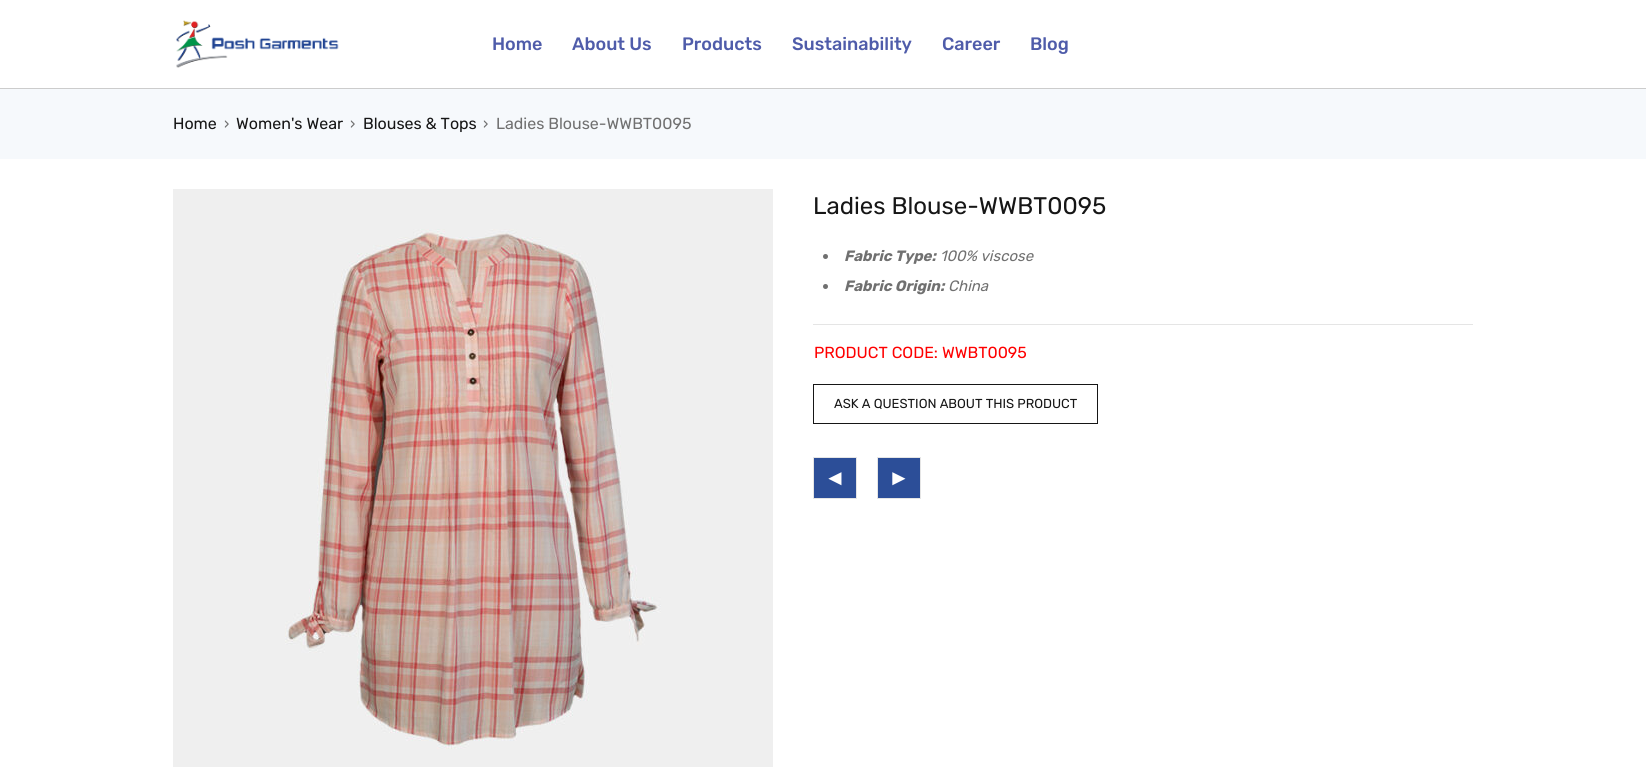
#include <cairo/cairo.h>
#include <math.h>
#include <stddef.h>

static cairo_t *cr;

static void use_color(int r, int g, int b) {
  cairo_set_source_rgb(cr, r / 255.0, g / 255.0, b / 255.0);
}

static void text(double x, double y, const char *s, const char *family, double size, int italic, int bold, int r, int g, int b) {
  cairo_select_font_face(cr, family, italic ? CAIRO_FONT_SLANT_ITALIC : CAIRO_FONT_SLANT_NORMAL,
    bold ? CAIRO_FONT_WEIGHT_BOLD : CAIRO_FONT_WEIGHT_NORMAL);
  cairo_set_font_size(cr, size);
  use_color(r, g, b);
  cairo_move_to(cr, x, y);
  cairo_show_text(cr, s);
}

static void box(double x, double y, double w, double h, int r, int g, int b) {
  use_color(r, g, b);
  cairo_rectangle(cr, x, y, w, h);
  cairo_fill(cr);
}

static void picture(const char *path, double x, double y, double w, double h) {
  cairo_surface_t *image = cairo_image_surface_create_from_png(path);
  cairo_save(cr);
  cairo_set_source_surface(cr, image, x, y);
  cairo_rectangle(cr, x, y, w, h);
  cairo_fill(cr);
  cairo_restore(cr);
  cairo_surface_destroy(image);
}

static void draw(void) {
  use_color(255, 255, 255);
  cairo_paint(cr);
  picture("img_01.png", 176, 20, 163, 48);
  box(0, 88, 1646, 1, 204, 204, 204);
  box(0, 89, 1646, 70, 246, 249, 252);
  picture("img_02.png", 173, 189, 600, 578);
  use_color(112, 112, 112);
  cairo_arc(cr, 825.5, 256.5, 2.5, 0, 2 * M_PI);
  cairo_fill(cr);
  cairo_arc(cr, 825.5, 286.5, 2.5, 0, 2 * M_PI);
  cairo_fill(cr);
  box(813, 324, 660, 1, 229, 229, 229);
  cairo_rectangle(cr, 813.5, 384.5, 284, 39);
  use_color(22, 22, 22);
  cairo_set_line_width(cr, 1);
  cairo_stroke(cr);
  box(813, 457, 44, 1, 229, 229, 229);
  box(856, 457, 1, 42, 229, 229, 229);
  box(813, 498, 44, 1, 229, 229, 229);
  box(813, 457, 1, 42, 229, 229, 229);
  box(814, 458, 42, 40, 44, 78, 152);
  box(877, 457, 44, 1, 229, 229, 229);
  box(920, 457, 1, 42, 229, 229, 229);
  box(877, 498, 44, 1, 229, 229, 229);
  box(877, 457, 1, 42, 229, 229, 229);
  box(878, 458, 42, 40, 44, 78, 152);
  text(492, 50, "Home", "Rubik Medium", 18, 0, 0, 79, 92, 170);
  text(572, 50, "About Us", "Rubik Medium", 18, 0, 0, 79, 92, 170);
  text(682, 50, "Products", "Rubik Medium", 18, 0, 0, 79, 92, 170);
  text(792, 50, "Sustainability", "Rubik Medium", 18, 0, 0, 79, 92, 170);
  text(942, 50, "Career", "Rubik Medium", 18, 0, 0, 79, 92, 170);
  text(1030, 50, "Blog", "Rubik Medium", 18, 0, 0, 79, 92, 170);
  text(173, 129, "Home", "Rubik", 16, 0, 0, 22, 22, 22);
  text(224, 129, "›", "Rubik", 15, 0, 0, 112, 112, 112);
  text(236, 129, "Women's Wear", "Rubik", 16, 0, 0, 22, 22, 22);
  text(350, 129, "›", "Rubik", 15, 0, 0, 112, 112, 112);
  text(363, 129, "Blouses & Tops", "Rubik", 16, 0, 0, 22, 22, 22);
  text(483, 129, "›", "Rubik", 15, 0, 0, 112, 112, 112);
  text(496, 129, "Ladies Blouse-WWBT0095", "Rubik", 16, 0, 0, 112, 112, 112);
  text(813, 214, "Ladies Blouse-WWBT0095", "Rubik", 24, 0, 0, 22, 22, 22);
  text(844, 261, "Fabric Type:", "Rubik", 15, 1, 1, 112, 112, 112);
  text(940, 261, "100% viscose", "Rubik", 15, 1, 0, 112, 112, 112);
  text(844, 291, "Fabric Origin:", "Rubik", 15, 1, 1, 112, 112, 112);
  text(948, 291, "China", "Rubik", 15, 1, 0, 112, 112, 112);
  text(814, 358, "PRODUCT CODE: WWBT0095", "Rubik", 16, 0, 0, 255, 0, 0);
  text(834, 408, "ASK A QUESTION ABOUT THIS PRODUCT", "Rubik", 13, 0, 0, 22, 22, 22);
  text(824, 485, "◄", "Liberation Sans", 22, 0, 0, 255, 255, 255);
  text(888, 485, "►", "Liberation Sans", 22, 0, 0, 255, 255, 255);
}

int main(void) {
  cairo_surface_t *surface = cairo_image_surface_create(CAIRO_FORMAT_RGB24, 1646, 767);
  cr = cairo_create(surface);
  cairo_font_options_t *options = cairo_font_options_create();
  cairo_font_options_set_hint_metrics(options, CAIRO_HINT_METRICS_OFF);
  cairo_font_options_set_hint_style(options, CAIRO_HINT_STYLE_NONE);
  cairo_set_font_options(cr, options);
  cairo_set_miter_limit(cr, 4);
  draw();
  cairo_surface_write_to_png(surface, "out.png");
  cairo_font_options_destroy(options);
  cairo_destroy(cr);
  cairo_surface_destroy(surface);
  return 0;
}
